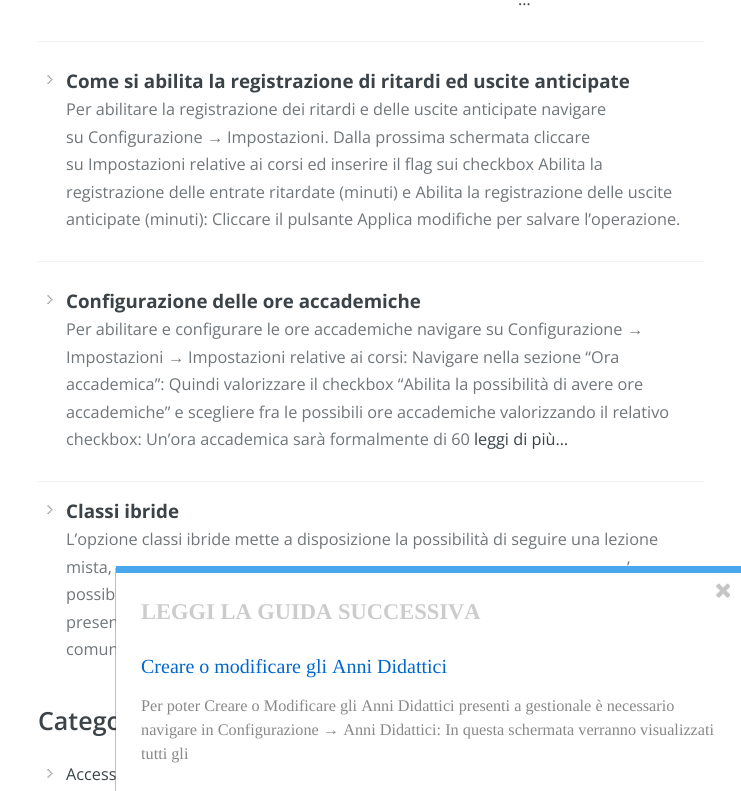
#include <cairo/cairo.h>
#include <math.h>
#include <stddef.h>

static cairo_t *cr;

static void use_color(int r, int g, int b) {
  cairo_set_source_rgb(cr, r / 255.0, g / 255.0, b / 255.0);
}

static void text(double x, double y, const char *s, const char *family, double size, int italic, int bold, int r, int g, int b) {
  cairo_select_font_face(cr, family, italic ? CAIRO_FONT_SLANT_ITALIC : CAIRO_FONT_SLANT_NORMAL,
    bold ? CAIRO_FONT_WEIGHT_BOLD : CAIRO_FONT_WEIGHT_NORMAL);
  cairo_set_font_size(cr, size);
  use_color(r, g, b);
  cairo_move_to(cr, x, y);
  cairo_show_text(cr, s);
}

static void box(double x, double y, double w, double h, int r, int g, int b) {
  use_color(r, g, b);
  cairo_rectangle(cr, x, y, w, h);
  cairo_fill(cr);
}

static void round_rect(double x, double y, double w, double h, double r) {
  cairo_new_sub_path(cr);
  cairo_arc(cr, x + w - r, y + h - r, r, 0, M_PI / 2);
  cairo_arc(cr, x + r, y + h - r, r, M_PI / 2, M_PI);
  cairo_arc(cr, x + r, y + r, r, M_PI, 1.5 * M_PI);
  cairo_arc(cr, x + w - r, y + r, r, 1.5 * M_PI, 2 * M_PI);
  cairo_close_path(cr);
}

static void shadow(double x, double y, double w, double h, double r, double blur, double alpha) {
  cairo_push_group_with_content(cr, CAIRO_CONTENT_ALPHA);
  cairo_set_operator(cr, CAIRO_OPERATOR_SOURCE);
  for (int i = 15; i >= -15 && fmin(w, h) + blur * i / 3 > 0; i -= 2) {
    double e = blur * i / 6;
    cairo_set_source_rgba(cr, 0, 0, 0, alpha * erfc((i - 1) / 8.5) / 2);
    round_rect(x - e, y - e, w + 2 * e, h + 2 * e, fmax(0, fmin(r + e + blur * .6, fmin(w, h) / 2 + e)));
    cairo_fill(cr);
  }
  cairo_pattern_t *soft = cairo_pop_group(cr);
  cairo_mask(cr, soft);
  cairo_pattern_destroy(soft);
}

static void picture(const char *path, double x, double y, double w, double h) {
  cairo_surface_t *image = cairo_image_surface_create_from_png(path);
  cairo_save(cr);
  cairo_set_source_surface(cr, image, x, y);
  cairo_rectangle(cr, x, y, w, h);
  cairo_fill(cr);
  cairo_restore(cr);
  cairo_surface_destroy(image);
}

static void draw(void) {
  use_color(255, 255, 255);
  cairo_paint(cr);
  box(38, 41, 666, 1, 242, 242, 242);
  picture("img_01.png", 47, 75, 6, 9);
  box(38, 261, 666, 1, 242, 242, 242);
  picture("img_01.png", 47, 295, 6, 9);
  box(38, 481, 666, 1, 242, 242, 242);
  picture("img_01.png", 47, 505, 6, 9);
  picture("img_02.png", 47, 769, 6, 9);
  use_color(0, 0, 0);
  shadow(116, 568, 625, 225, 0, 0.5, 1);
  box(116, 566, 625, 7, 73, 167, 237);
  text(518, 5, "…", "Open Sans", 16.25, 0, 0, 59, 67, 72);
  text(66, 88, "Come si abilita la registrazione di ritardi ed uscite anticipate", "Open Sans", 18.75, 0, 1, 59, 67, 72);
  text(66, 115, "Per abilitare la registrazione dei ritardi e delle uscite anticipate navigare", "Open Sans", 16.25, 0, 0, 111, 117, 121);
  text(66, 143, "su Configurazione", "Open Sans", 16.25, 0, 0, 111, 117, 121);
  text(207, 143, "→", "Liberation Sans", 16.25, 0, 0, 111, 117, 121);
  text(227, 143, "Impostazioni. Dalla prossima schermata cliccare", "Open Sans", 16.25, 0, 0, 111, 117, 121);
  text(66, 170, "su Impostazioni relative ai corsi ed inserire il flag sui checkbox Abilita la", "Open Sans", 16.25, 0, 0, 111, 117, 121);
  text(66, 198, "registrazione delle entrate ritardate (minuti) e Abilita la registrazione delle uscite", "Open Sans", 16.25, 0, 0, 111, 117, 121);
  text(66, 225, "anticipate (minuti): Cliccare il pulsante Applica modifiche per salvare l’operazione.", "Open Sans", 16.25, 0, 0, 111, 117, 121);
  text(66, 308, "Configurazione delle ore accademiche", "Open Sans", 18.75, 0, 1, 59, 67, 72);
  text(66, 335, "Per abilitare e configurare le ore accademiche navigare su Configurazione", "Open Sans", 16.25, 0, 0, 111, 117, 121);
  text(627, 335, "→", "Liberation Sans", 16.25, 0, 0, 111, 117, 121);
  text(66, 363, "Impostazioni", "Open Sans", 16.25, 0, 0, 111, 117, 121);
  text(168, 363, "→", "Liberation Sans", 16.25, 0, 0, 111, 117, 121);
  text(188, 363, "Impostazioni relative ai corsi: Navigare nella sezione “Ora", "Open Sans", 16.25, 0, 0, 111, 117, 121);
  text(66, 390, "accademica”: Quindi valorizzare il checkbox “Abilita la possibilità di avere ore", "Open Sans", 16.25, 0, 0, 111, 117, 121);
  text(66, 418, "accademiche” e scegliere fra le possibili ore accademiche valorizzando il relativo", "Open Sans", 16.25, 0, 0, 111, 117, 121);
  text(66, 445, "checkbox: Un’ora accademica sarà formalmente di 60", "Open Sans", 16.25, 0, 0, 111, 117, 121);
  text(474, 445, "leggi di più…", "Open Sans", 16.25, 0, 0, 59, 67, 72);
  text(66, 518, "Classi ibride", "Open Sans", 18.75, 0, 1, 59, 67, 72);
  text(66, 545, "L’opzione classi ibride mette a disposizione la possibilità di seguire una lezione", "Open Sans", 16.25, 0, 0, 111, 117, 121);
  text(66, 573, "mista,", "Open Sans", 16.25, 0, 0, 111, 117, 121);
  text(627, 573, "’", "Open Sans", 16.25, 0, 0, 111, 117, 121);
  text(66, 600, "possib", "Open Sans", 16.25, 0, 0, 111, 117, 121);
  text(66, 628, "presen", "Open Sans", 16.25, 0, 0, 111, 117, 121);
  text(66, 655, "comun", "Open Sans", 16.25, 0, 0, 111, 117, 121);
  text(38, 730, "Catego", "Open Sans SemiBold", 25, 0, 0, 59, 67, 72);
  text(66, 780, "Access", "Open Sans", 16.25, 0, 0, 59, 67, 72);
  box(116, 573, 625, 218, 255, 255, 255);
  picture("img_03.png", 716, 583, 14, 15);
  text(141, 619, "LEGGI LA GUIDA SUCCESSIVA", "Liberation Serif", 22.5, 0, 1, 204, 204, 204);
  text(141, 673, "Creare o modificare gli Anni Didattici", "Liberation Serif", 20, 0, 0, 0, 102, 204);
  text(141, 711, "Per poter Creare o Modificare gli Anni Didattici presenti a gestionale è necessario", "Liberation Serif", 16.25, 0, 0, 136, 136, 136);
  text(141, 735, "navigare in Configurazione → Anni Didattici: In questa schermata verranno visualizzati", "Liberation Serif", 16.25, 0, 0, 136, 136, 136);
  text(141, 759, "tutti gli", "Liberation Serif", 16.25, 0, 0, 136, 136, 136);
}

int main(void) {
  cairo_surface_t *surface = cairo_image_surface_create(CAIRO_FORMAT_RGB24, 741, 791);
  cr = cairo_create(surface);
  cairo_font_options_t *options = cairo_font_options_create();
  cairo_font_options_set_hint_metrics(options, CAIRO_HINT_METRICS_OFF);
  cairo_font_options_set_hint_style(options, CAIRO_HINT_STYLE_NONE);
  cairo_set_font_options(cr, options);
  cairo_set_miter_limit(cr, 4);
  draw();
  cairo_surface_write_to_png(surface, "out.png");
  cairo_font_options_destroy(options);
  cairo_destroy(cr);
  cairo_surface_destroy(surface);
  return 0;
}
